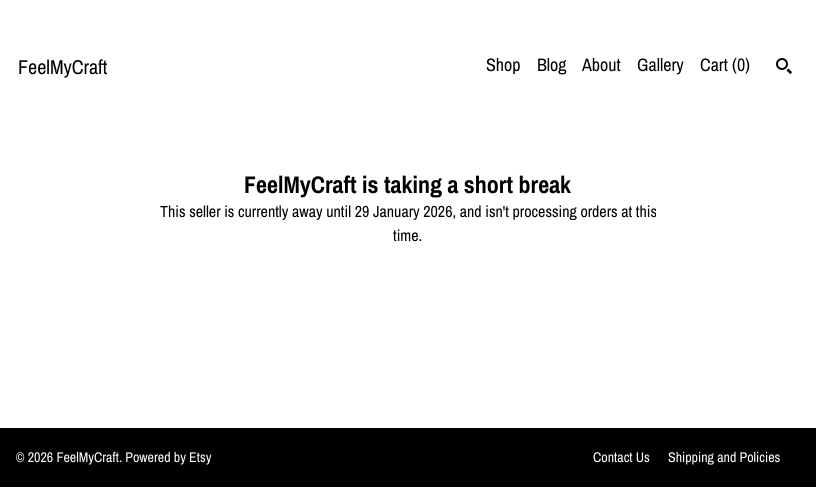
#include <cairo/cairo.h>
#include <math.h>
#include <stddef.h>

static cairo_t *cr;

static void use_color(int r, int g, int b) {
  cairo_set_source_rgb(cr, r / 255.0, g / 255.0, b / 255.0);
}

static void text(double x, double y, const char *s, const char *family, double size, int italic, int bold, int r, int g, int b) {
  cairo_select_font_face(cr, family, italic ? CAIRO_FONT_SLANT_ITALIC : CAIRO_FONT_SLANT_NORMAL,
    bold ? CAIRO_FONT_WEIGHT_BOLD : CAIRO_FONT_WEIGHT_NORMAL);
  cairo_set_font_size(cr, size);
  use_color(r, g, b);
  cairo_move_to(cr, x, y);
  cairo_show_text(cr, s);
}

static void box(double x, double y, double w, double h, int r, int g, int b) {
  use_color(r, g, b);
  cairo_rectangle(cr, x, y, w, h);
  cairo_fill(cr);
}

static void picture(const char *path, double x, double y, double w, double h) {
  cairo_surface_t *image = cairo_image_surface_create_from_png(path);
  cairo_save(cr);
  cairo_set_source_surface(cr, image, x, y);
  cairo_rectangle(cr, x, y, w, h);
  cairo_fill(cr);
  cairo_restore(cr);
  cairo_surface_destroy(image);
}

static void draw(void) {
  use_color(255, 255, 255);
  cairo_paint(cr);
  picture("img_01.png", 776, 58, 16, 16);
  box(0, 428, 816, 59, 0, 0, 0);
  text(18, 74, "FeelMyCraft", "Archivo Narrow", 20, 0, 0, 0, 0, 0);
  text(486, 71, "Shop", "Archivo Narrow", 18, 0, 0, 0, 0, 0);
  text(537, 71, "Blog", "Archivo Narrow", 18, 0, 0, 0, 0, 0);
  text(582, 71, "About", "Archivo Narrow", 18, 0, 0, 0, 0, 0);
  text(637, 71, "Gallery", "Archivo Narrow", 18, 0, 0, 0, 0, 0);
  text(700, 71, "Cart (0)", "Archivo Narrow", 18, 0, 0, 0, 0, 0);
  text(244, 193, "FeelMyCraft is taking a short break", "Archivo Narrow", 24, 0, 1, 0, 0, 0);
  text(160, 217, "This seller is currently away until 29 January 2026, and isn't processing orders at this", "Archivo Narrow", 16, 0, 0, 0, 0, 0);
  text(393, 241, "time.", "Archivo Narrow", 16, 0, 0, 0, 0, 0);
  text(16, 462, "© 2026 FeelMyCraft. Powered by Etsy", "Archivo Narrow", 14, 0, 0, 255, 255, 255);
  text(593, 462, "Contact Us", "Archivo Narrow", 14, 0, 0, 255, 255, 255);
  text(668, 462, "Shipping and Policies", "Archivo Narrow", 14, 0, 0, 255, 255, 255);
}

int main(void) {
  cairo_surface_t *surface = cairo_image_surface_create(CAIRO_FORMAT_RGB24, 816, 488);
  cr = cairo_create(surface);
  cairo_font_options_t *options = cairo_font_options_create();
  cairo_font_options_set_hint_metrics(options, CAIRO_HINT_METRICS_OFF);
  cairo_font_options_set_hint_style(options, CAIRO_HINT_STYLE_NONE);
  cairo_set_font_options(cr, options);
  cairo_set_miter_limit(cr, 4);
  draw();
  cairo_surface_write_to_png(surface, "out.png");
  cairo_font_options_destroy(options);
  cairo_destroy(cr);
  cairo_surface_destroy(surface);
  return 0;
}
